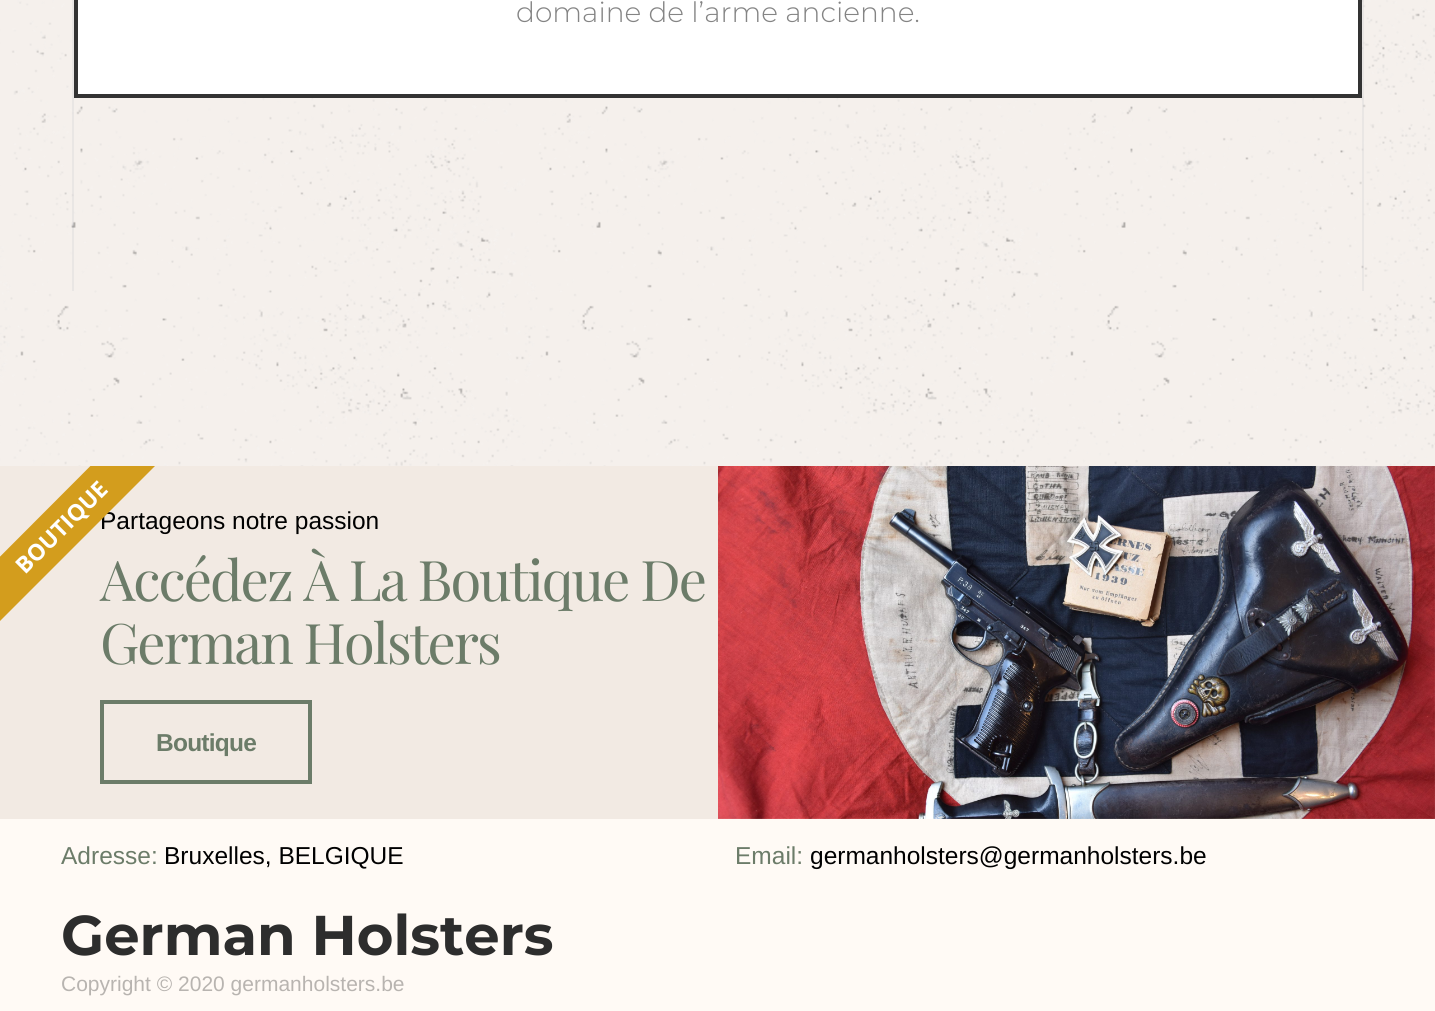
#include <cairo/cairo.h>
#include <math.h>
#include <stddef.h>

static cairo_t *cr;

static void use_color(int r, int g, int b) {
  cairo_set_source_rgb(cr, r / 255.0, g / 255.0, b / 255.0);
}

static void text(double x, double y, const char *s, const char *family, double size, int italic, int bold, int r, int g, int b) {
  cairo_select_font_face(cr, family, italic ? CAIRO_FONT_SLANT_ITALIC : CAIRO_FONT_SLANT_NORMAL,
    bold ? CAIRO_FONT_WEIGHT_BOLD : CAIRO_FONT_WEIGHT_NORMAL);
  cairo_set_font_size(cr, size);
  use_color(r, g, b);
  cairo_move_to(cr, x, y);
  cairo_show_text(cr, s);
}

static void spaced_text(double x, double y, const char *s, double letter, double word) {
  cairo_move_to(cr, x, y);
  while (*s) {
    char ch[5] = {0};
    int n = 0;
    do ch[n++] = *s++; while ((*s & 0xC0) == 0x80);
    cairo_show_text(cr, ch);
    cairo_rel_move_to(cr, letter + word * (*ch == ' '), 0);
  }
}

static void box(double x, double y, double w, double h, int r, int g, int b) {
  use_color(r, g, b);
  cairo_rectangle(cr, x, y, w, h);
  cairo_fill(cr);
}

static void picture(const char *path, double x, double y, double w, double h) {
  cairo_surface_t *image = cairo_image_surface_create_from_png(path);
  cairo_save(cr);
  cairo_set_source_surface(cr, image, x, y);
  cairo_rectangle(cr, x, y, w, h);
  cairo_fill(cr);
  cairo_restore(cr);
  cairo_surface_destroy(image);
}

static void draw(void) {
  use_color(245, 240, 236);
  cairo_paint(cr);
  picture("img_01.png", 0, 0, 1435, 466);
  cairo_set_source_rgba(cr, 0.004, 0.086, 0.251, 0.05);
  cairo_rectangle(cr, 1362, 0, 2, 291);
  cairo_fill(cr);
  cairo_rectangle(cr, 72, 0, 2, 291);
  cairo_fill(cr);
  use_color(255, 255, 255);
  cairo_rectangle(cr, 76, -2, 1284, 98);
  cairo_fill_preserve(cr);
  use_color(51, 51, 51);
  cairo_set_line_width(cr, 4);
  cairo_stroke(cr);
  box(0, 466, 1435, 545, 255, 250, 245);
  box(0, 466, 718, 353, 242, 234, 227);
  cairo_rectangle(cr, 102, 702, 208, 80);
  use_color(108, 124, 105);
  cairo_stroke(cr);
  picture("img_02.png", 718, 466, 717, 353);
  text(516, 22, "domaine de l’arme ancienne.", "Montserrat Light", 28, 0, 0, 132, 132, 132);
  text(100, 529, "Partageons notre passion", "Liberation Sans", 24.5, 0, 0, 0, 0, 0);
  cairo_select_font_face(cr, "Playfair Display", CAIRO_FONT_SLANT_NORMAL, CAIRO_FONT_WEIGHT_NORMAL);
  cairo_set_font_size(cr, 56);
  use_color(108, 124, 105);
  spaced_text(100, 601, "Accédez À La Boutique De", -2, 0);
  spaced_text(100, 664, "German Holsters", -2, 0);
  cairo_save(cr);
  cairo_rectangle(cr, 0, 466, 263, 262);
  cairo_clip(cr);
  use_color(211, 157, 29);
  cairo_new_path(cr);
  cairo_move_to(cr, -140, 697);
  cairo_line_to(cr, 231, 325);
  cairo_line_to(cr, 263, 358);
  cairo_line_to(cr, -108, 729);
  cairo_close_path(cr);
  cairo_fill(cr);
  cairo_restore(cr);
  cairo_save(cr);
  cairo_translate(cr, 25, 575);
  cairo_rotate(cr, -45 * M_PI / 180);
  text(0, 0, "BOUTIQUE", "Open Sans", 22.75, 0, 1, 255, 255, 255);
  cairo_restore(cr);
  cairo_select_font_face(cr, "Liberation Sans", CAIRO_FONT_SLANT_NORMAL, CAIRO_FONT_WEIGHT_BOLD);
  cairo_set_font_size(cr, 24.5);
  use_color(108, 124, 105);
  spaced_text(156, 751, "Boutique", -0.75, 0);
  text(61, 864, "Adresse:", "Liberation Sans", 24.5, 0, 0, 108, 124, 105);
  text(164, 864, "Bruxelles, BELGIQUE", "Liberation Sans", 24.5, 0, 0, 0, 0, 0);
  text(735, 864, "Email:", "Liberation Sans", 24.5, 0, 0, 108, 124, 105);
  text(810, 864, "germanholsters@germanholsters.be", "Liberation Sans", 24.5, 0, 0, 0, 0, 0);
  text(61, 955, "German Holsters", "Montserrat", 56, 0, 1, 45, 45, 45);
  text(61, 991, "Copyright © 2020 germanholsters.be", "Liberation Sans", 21, 0, 0, 184, 180, 176);
}

int main(void) {
  cairo_surface_t *surface = cairo_image_surface_create(CAIRO_FORMAT_RGB24, 1435, 1011);
  cr = cairo_create(surface);
  cairo_font_options_t *options = cairo_font_options_create();
  cairo_font_options_set_hint_metrics(options, CAIRO_HINT_METRICS_OFF);
  cairo_font_options_set_hint_style(options, CAIRO_HINT_STYLE_NONE);
  cairo_set_font_options(cr, options);
  cairo_set_miter_limit(cr, 4);
  draw();
  cairo_surface_write_to_png(surface, "out.png");
  cairo_font_options_destroy(options);
  cairo_destroy(cr);
  cairo_surface_destroy(surface);
  return 0;
}
